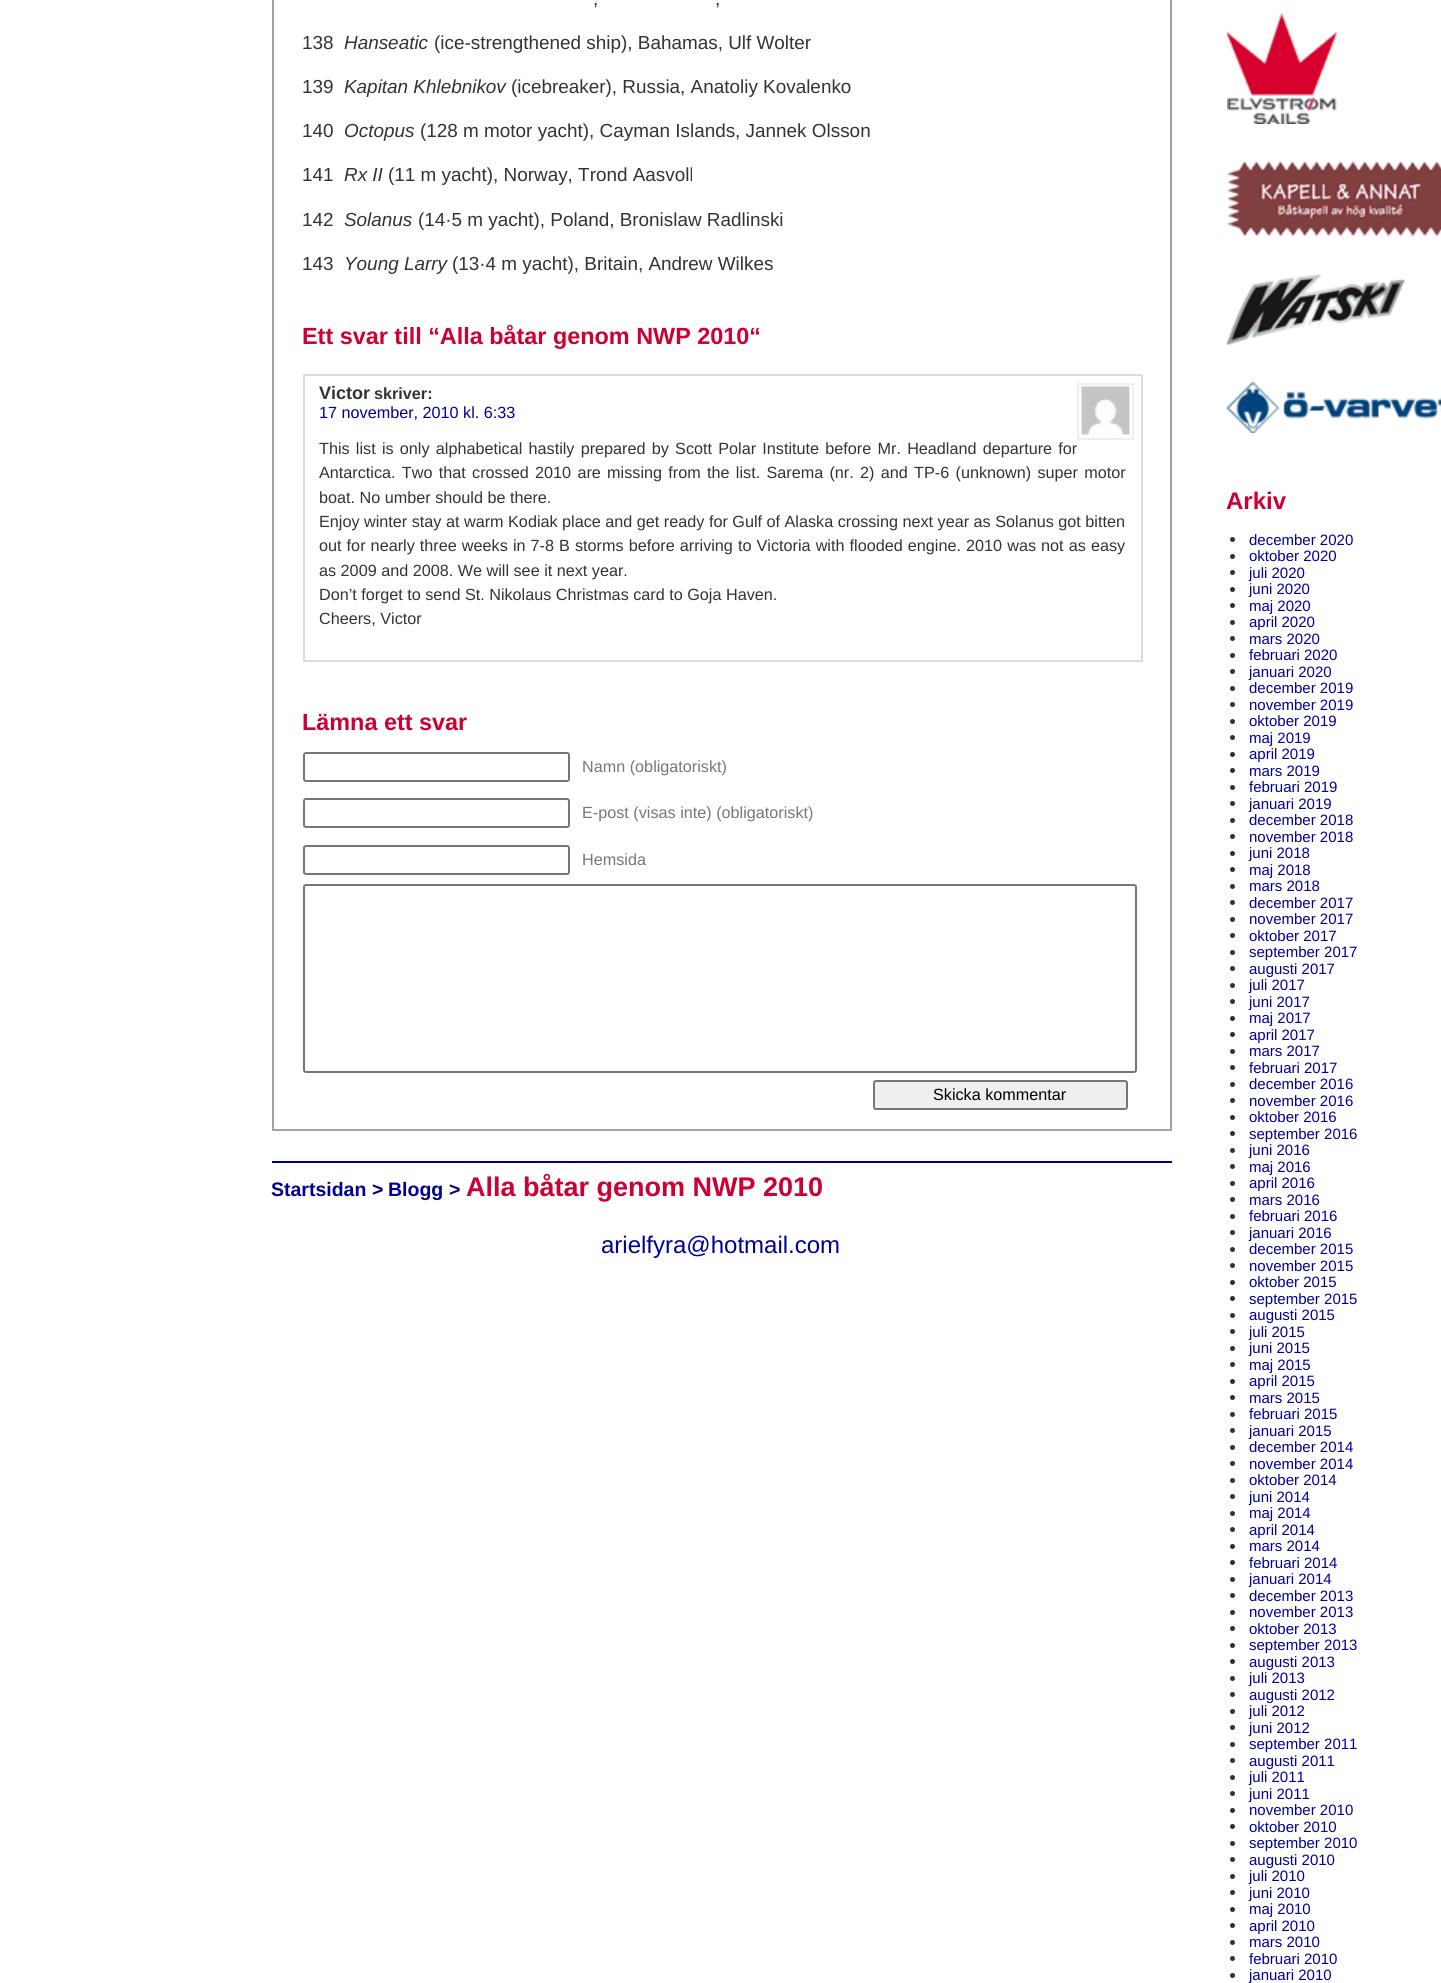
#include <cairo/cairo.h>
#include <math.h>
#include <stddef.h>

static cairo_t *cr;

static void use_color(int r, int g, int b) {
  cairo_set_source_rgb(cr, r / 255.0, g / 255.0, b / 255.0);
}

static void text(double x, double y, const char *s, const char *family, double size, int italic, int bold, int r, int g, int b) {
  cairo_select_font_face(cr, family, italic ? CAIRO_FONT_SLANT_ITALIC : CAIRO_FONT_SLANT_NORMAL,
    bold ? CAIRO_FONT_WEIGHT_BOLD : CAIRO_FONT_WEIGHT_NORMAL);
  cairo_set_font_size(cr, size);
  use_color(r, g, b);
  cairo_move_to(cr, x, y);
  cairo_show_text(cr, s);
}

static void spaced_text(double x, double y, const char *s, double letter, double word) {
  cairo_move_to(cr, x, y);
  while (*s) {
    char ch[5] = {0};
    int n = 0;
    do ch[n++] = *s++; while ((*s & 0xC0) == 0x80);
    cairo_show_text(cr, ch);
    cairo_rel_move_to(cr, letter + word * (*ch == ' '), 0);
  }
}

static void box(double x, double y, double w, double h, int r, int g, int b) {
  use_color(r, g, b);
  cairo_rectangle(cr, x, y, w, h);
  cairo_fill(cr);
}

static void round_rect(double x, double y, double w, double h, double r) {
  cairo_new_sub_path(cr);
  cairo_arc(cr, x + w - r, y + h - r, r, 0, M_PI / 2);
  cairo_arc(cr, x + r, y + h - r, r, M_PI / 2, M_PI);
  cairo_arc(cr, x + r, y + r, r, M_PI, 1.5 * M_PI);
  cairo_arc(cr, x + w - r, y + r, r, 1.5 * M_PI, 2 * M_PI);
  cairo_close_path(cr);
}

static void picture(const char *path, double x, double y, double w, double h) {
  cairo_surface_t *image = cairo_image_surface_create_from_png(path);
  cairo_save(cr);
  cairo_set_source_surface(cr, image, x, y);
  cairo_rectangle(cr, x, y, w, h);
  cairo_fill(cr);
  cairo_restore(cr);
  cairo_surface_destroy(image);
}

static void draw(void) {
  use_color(255, 255, 255);
  cairo_paint(cr);
  cairo_rectangle(cr, 273, -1, 898, 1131);
  use_color(164, 164, 164);
  cairo_stroke(cr);
  cairo_rectangle(cr, 304, 375, 838, 286);
  use_color(221, 221, 221);
  cairo_stroke(cr);
  cairo_rectangle(cr, 1078, 384, 55, 55);
  use_color(238, 238, 238);
  cairo_stroke(cr);
  picture("img_01.png", 1081, 386, 49, 49);
  round_rect(304, 753, 265, 28, 2);
  use_color(118, 118, 118);
  cairo_stroke(cr);
  round_rect(304, 799, 265, 28, 2);
  cairo_stroke(cr);
  round_rect(304, 846, 265, 28, 2);
  cairo_stroke(cr);
  round_rect(304, 885, 832, 187, 2);
  cairo_stroke(cr);
  use_color(239, 239, 239);
  round_rect(874, 1081, 253, 28, 2);
  cairo_fill_preserve(cr);
  use_color(118, 118, 118);
  cairo_stroke(cr);
  box(272, 1161, 900, 2, 0, 0, 153);
  picture("img_02.png", 1227, 13, 110, 111);
  picture("img_03.png", 1227, 161, 214, 76);
  picture("img_04.png", 1227, 274, 179, 71);
  picture("img_05.png", 1227, 382, 214, 51);
  use_color(51, 51, 51);
  cairo_arc(cr, 1232.5, 539.5, 2.5, 0, 2 * M_PI);
  cairo_fill(cr);
  cairo_arc(cr, 1232.5, 556.5, 2.5, 0, 2 * M_PI);
  cairo_fill(cr);
  cairo_arc(cr, 1232.5, 572.5, 2.5, 0, 2 * M_PI);
  cairo_fill(cr);
  cairo_arc(cr, 1232.5, 589.5, 2.5, 0, 2 * M_PI);
  cairo_fill(cr);
  cairo_arc(cr, 1232.5, 605.5, 2.5, 0, 2 * M_PI);
  cairo_fill(cr);
  cairo_arc(cr, 1232.5, 622.5, 2.5, 0, 2 * M_PI);
  cairo_fill(cr);
  cairo_arc(cr, 1232.5, 638.5, 2.5, 0, 2 * M_PI);
  cairo_fill(cr);
  cairo_arc(cr, 1232.5, 655.5, 2.5, 0, 2 * M_PI);
  cairo_fill(cr);
  cairo_arc(cr, 1232.5, 671.5, 2.5, 0, 2 * M_PI);
  cairo_fill(cr);
  cairo_arc(cr, 1232.5, 688.5, 2.5, 0, 2 * M_PI);
  cairo_fill(cr);
  cairo_arc(cr, 1232.5, 704.5, 2.5, 0, 2 * M_PI);
  cairo_fill(cr);
  cairo_arc(cr, 1232.5, 721.5, 2.5, 0, 2 * M_PI);
  cairo_fill(cr);
  cairo_arc(cr, 1232.5, 737.5, 2.5, 0, 2 * M_PI);
  cairo_fill(cr);
  cairo_arc(cr, 1232.5, 754.5, 2.5, 0, 2 * M_PI);
  cairo_fill(cr);
  cairo_arc(cr, 1232.5, 770.5, 2.5, 0, 2 * M_PI);
  cairo_fill(cr);
  cairo_arc(cr, 1232.5, 787.5, 2.5, 0, 2 * M_PI);
  cairo_fill(cr);
  cairo_arc(cr, 1232.5, 803.5, 2.5, 0, 2 * M_PI);
  cairo_fill(cr);
  cairo_arc(cr, 1232.5, 820.5, 2.5, 0, 2 * M_PI);
  cairo_fill(cr);
  cairo_arc(cr, 1232.5, 836.5, 2.5, 0, 2 * M_PI);
  cairo_fill(cr);
  cairo_arc(cr, 1232.5, 853.5, 2.5, 0, 2 * M_PI);
  cairo_fill(cr);
  cairo_arc(cr, 1232.5, 869.5, 2.5, 0, 2 * M_PI);
  cairo_fill(cr);
  cairo_arc(cr, 1232.5, 886.5, 2.5, 0, 2 * M_PI);
  cairo_fill(cr);
  cairo_arc(cr, 1232.5, 902.5, 2.5, 0, 2 * M_PI);
  cairo_fill(cr);
  cairo_arc(cr, 1232.5, 919.5, 2.5, 0, 2 * M_PI);
  cairo_fill(cr);
  cairo_arc(cr, 1232.5, 935.5, 2.5, 0, 2 * M_PI);
  cairo_fill(cr);
  cairo_arc(cr, 1232.5, 952.5, 2.5, 0, 2 * M_PI);
  cairo_fill(cr);
  cairo_arc(cr, 1232.5, 968.5, 2.5, 0, 2 * M_PI);
  cairo_fill(cr);
  cairo_arc(cr, 1232.5, 985.5, 2.5, 0, 2 * M_PI);
  cairo_fill(cr);
  cairo_arc(cr, 1232.5, 1001.5, 2.5, 0, 2 * M_PI);
  cairo_fill(cr);
  cairo_arc(cr, 1232.5, 1018.5, 2.5, 0, 2 * M_PI);
  cairo_fill(cr);
  cairo_arc(cr, 1232.5, 1034.5, 2.5, 0, 2 * M_PI);
  cairo_fill(cr);
  cairo_arc(cr, 1232.5, 1051.5, 2.5, 0, 2 * M_PI);
  cairo_fill(cr);
  cairo_arc(cr, 1232.5, 1067.5, 2.5, 0, 2 * M_PI);
  cairo_fill(cr);
  cairo_arc(cr, 1232.5, 1084.5, 2.5, 0, 2 * M_PI);
  cairo_fill(cr);
  cairo_arc(cr, 1232.5, 1100.5, 2.5, 0, 2 * M_PI);
  cairo_fill(cr);
  cairo_arc(cr, 1232.5, 1117.5, 2.5, 0, 2 * M_PI);
  cairo_fill(cr);
  cairo_arc(cr, 1232.5, 1133.5, 2.5, 0, 2 * M_PI);
  cairo_fill(cr);
  cairo_arc(cr, 1232.5, 1150.5, 2.5, 0, 2 * M_PI);
  cairo_fill(cr);
  cairo_arc(cr, 1232.5, 1166.5, 2.5, 0, 2 * M_PI);
  cairo_fill(cr);
  cairo_arc(cr, 1232.5, 1183.5, 2.5, 0, 2 * M_PI);
  cairo_fill(cr);
  cairo_arc(cr, 1232.5, 1199.5, 2.5, 0, 2 * M_PI);
  cairo_fill(cr);
  cairo_arc(cr, 1232.5, 1216.5, 2.5, 0, 2 * M_PI);
  cairo_fill(cr);
  cairo_arc(cr, 1232.5, 1232.5, 2.5, 0, 2 * M_PI);
  cairo_fill(cr);
  cairo_arc(cr, 1232.5, 1249.5, 2.5, 0, 2 * M_PI);
  cairo_fill(cr);
  cairo_arc(cr, 1232.5, 1265.5, 2.5, 0, 2 * M_PI);
  cairo_fill(cr);
  cairo_arc(cr, 1232.5, 1282.5, 2.5, 0, 2 * M_PI);
  cairo_fill(cr);
  cairo_arc(cr, 1232.5, 1298.5, 2.5, 0, 2 * M_PI);
  cairo_fill(cr);
  cairo_arc(cr, 1232.5, 1315.5, 2.5, 0, 2 * M_PI);
  cairo_fill(cr);
  cairo_arc(cr, 1232.5, 1331.5, 2.5, 0, 2 * M_PI);
  cairo_fill(cr);
  cairo_arc(cr, 1232.5, 1348.5, 2.5, 0, 2 * M_PI);
  cairo_fill(cr);
  cairo_arc(cr, 1232.5, 1364.5, 2.5, 0, 2 * M_PI);
  cairo_fill(cr);
  cairo_arc(cr, 1232.5, 1381.5, 2.5, 0, 2 * M_PI);
  cairo_fill(cr);
  cairo_arc(cr, 1232.5, 1397.5, 2.5, 0, 2 * M_PI);
  cairo_fill(cr);
  cairo_arc(cr, 1232.5, 1414.5, 2.5, 0, 2 * M_PI);
  cairo_fill(cr);
  cairo_arc(cr, 1232.5, 1430.5, 2.5, 0, 2 * M_PI);
  cairo_fill(cr);
  cairo_arc(cr, 1232.5, 1447.5, 2.5, 0, 2 * M_PI);
  cairo_fill(cr);
  cairo_arc(cr, 1232.5, 1463.5, 2.5, 0, 2 * M_PI);
  cairo_fill(cr);
  cairo_arc(cr, 1232.5, 1480.5, 2.5, 0, 2 * M_PI);
  cairo_fill(cr);
  cairo_arc(cr, 1232.5, 1496.5, 2.5, 0, 2 * M_PI);
  cairo_fill(cr);
  cairo_arc(cr, 1232.5, 1513.5, 2.5, 0, 2 * M_PI);
  cairo_fill(cr);
  cairo_arc(cr, 1232.5, 1529.5, 2.5, 0, 2 * M_PI);
  cairo_fill(cr);
  cairo_arc(cr, 1232.5, 1546.5, 2.5, 0, 2 * M_PI);
  cairo_fill(cr);
  cairo_arc(cr, 1232.5, 1562.5, 2.5, 0, 2 * M_PI);
  cairo_fill(cr);
  cairo_arc(cr, 1232.5, 1579.5, 2.5, 0, 2 * M_PI);
  cairo_fill(cr);
  cairo_arc(cr, 1232.5, 1595.5, 2.5, 0, 2 * M_PI);
  cairo_fill(cr);
  cairo_arc(cr, 1232.5, 1612.5, 2.5, 0, 2 * M_PI);
  cairo_fill(cr);
  cairo_arc(cr, 1232.5, 1628.5, 2.5, 0, 2 * M_PI);
  cairo_fill(cr);
  cairo_arc(cr, 1232.5, 1645.5, 2.5, 0, 2 * M_PI);
  cairo_fill(cr);
  cairo_arc(cr, 1232.5, 1661.5, 2.5, 0, 2 * M_PI);
  cairo_fill(cr);
  cairo_arc(cr, 1232.5, 1678.5, 2.5, 0, 2 * M_PI);
  cairo_fill(cr);
  cairo_arc(cr, 1232.5, 1694.5, 2.5, 0, 2 * M_PI);
  cairo_fill(cr);
  cairo_arc(cr, 1232.5, 1711.5, 2.5, 0, 2 * M_PI);
  cairo_fill(cr);
  cairo_arc(cr, 1232.5, 1727.5, 2.5, 0, 2 * M_PI);
  cairo_fill(cr);
  cairo_arc(cr, 1232.5, 1744.5, 2.5, 0, 2 * M_PI);
  cairo_fill(cr);
  cairo_arc(cr, 1232.5, 1760.5, 2.5, 0, 2 * M_PI);
  cairo_fill(cr);
  cairo_arc(cr, 1232.5, 1777.5, 2.5, 0, 2 * M_PI);
  cairo_fill(cr);
  cairo_arc(cr, 1232.5, 1793.5, 2.5, 0, 2 * M_PI);
  cairo_fill(cr);
  cairo_arc(cr, 1232.5, 1810.5, 2.5, 0, 2 * M_PI);
  cairo_fill(cr);
  cairo_arc(cr, 1232.5, 1826.5, 2.5, 0, 2 * M_PI);
  cairo_fill(cr);
  cairo_arc(cr, 1232.5, 1843.5, 2.5, 0, 2 * M_PI);
  cairo_fill(cr);
  cairo_arc(cr, 1232.5, 1859.5, 2.5, 0, 2 * M_PI);
  cairo_fill(cr);
  cairo_arc(cr, 1232.5, 1876.5, 2.5, 0, 2 * M_PI);
  cairo_fill(cr);
  cairo_arc(cr, 1232.5, 1892.5, 2.5, 0, 2 * M_PI);
  cairo_fill(cr);
  cairo_arc(cr, 1232.5, 1909.5, 2.5, 0, 2 * M_PI);
  cairo_fill(cr);
  cairo_arc(cr, 1232.5, 1925.5, 2.5, 0, 2 * M_PI);
  cairo_fill(cr);
  cairo_arc(cr, 1232.5, 1942.5, 2.5, 0, 2 * M_PI);
  cairo_fill(cr);
  cairo_arc(cr, 1232.5, 1958.5, 2.5, 0, 2 * M_PI);
  cairo_fill(cr);
  cairo_arc(cr, 1232.5, 1975.5, 2.5, 0, 2 * M_PI);
  cairo_fill(cr);
  text(593, 5, ",", "Liberation Sans", 18.9, 0, 0, 51, 51, 51);
  text(715, 5, ",", "Liberation Sans", 18.9, 0, 0, 51, 51, 51);
  text(302, 49, "138", "Liberation Sans", 18.9, 0, 0, 51, 51, 51);
  text(344, 49, "Hanseatic", "Liberation Sans", 18.9, 1, 0, 51, 51, 51);
  text(434, 49, "(ice-strengthened ship), Bahamas, Ulf Wolter", "Liberation Sans", 18.9, 0, 0, 51, 51, 51);
  text(302, 93, "139", "Liberation Sans", 18.9, 0, 0, 51, 51, 51);
  text(344, 93, "Kapitan Khlebnikov", "Liberation Sans", 18.9, 1, 0, 51, 51, 51);
  text(511, 93, "(icebreaker), Russia, Anatoliy Kovalenko", "Liberation Sans", 18.9, 0, 0, 51, 51, 51);
  text(302, 137, "140", "Liberation Sans", 18.9, 0, 0, 51, 51, 51);
  text(344, 137, "Octopus", "Liberation Sans", 18.9, 1, 0, 51, 51, 51);
  text(420, 137, "(128 m motor yacht), Cayman Islands, Jannek Olsson", "Liberation Sans", 18.9, 0, 0, 51, 51, 51);
  text(302, 181, "141", "Liberation Sans", 18.9, 0, 0, 51, 51, 51);
  text(344, 181, "Rx II", "Liberation Sans", 18.9, 1, 0, 51, 51, 51);
  text(388, 181, "(11 m yacht), Norway, Trond Aasvoll", "Liberation Sans", 18.9, 0, 0, 51, 51, 51);
  text(302, 226, "142", "Liberation Sans", 18.9, 0, 0, 51, 51, 51);
  text(344, 226, "Solanus", "Liberation Sans", 18.9, 1, 0, 51, 51, 51);
  text(418, 226, "(14·5 m yacht), Poland, Bronislaw Radlinski", "Liberation Sans", 18.9, 0, 0, 51, 51, 51);
  text(302, 270, "143", "Liberation Sans", 18.9, 0, 0, 51, 51, 51);
  text(344, 270, "Young Larry", "Liberation Sans", 18.9, 1, 0, 51, 51, 51);
  text(452, 270, "(13·4 m yacht), Britain, Andrew Wilkes", "Liberation Sans", 18.9, 0, 0, 51, 51, 51);
  text(302, 344, "Ett svar till “Alla båtar genom NWP 2010“", "Liberation Sans", 23.4, 0, 1, 204, 0, 51);
  text(319, 399, "Victor", "Liberation Sans", 18, 0, 1, 51, 51, 51);
  text(374, 399, "skriver:", "Liberation Sans", 16.2, 0, 1, 51, 51, 51);
  text(319, 418, "17 november, 2010 kl. 6:33", "Liberation Sans", 16.2, 0, 0, 0, 0, 153);
  use_color(51, 51, 51);
  spaced_text(319, 454, "This list is only alphabetical hastily prepared by Scott Polar Institute before Mr. Headland departure for", 0, 1.75);
  spaced_text(319, 478, "Antarctica. Two that crossed 2010 are missing from the list. Sarema (nr. 2) and TP-6 (unknown) super motor", 0, 1.8);
  text(319, 503, "boat. No umber should be there.", "Liberation Sans", 16.2, 0, 0, 51, 51, 51);
  text(319, 527, "Enjoy winter stay at warm Kodiak place and get ready for Gulf of Alaska crossing next year as Solanus got bitten", "Liberation Sans", 16.2, 0, 0, 51, 51, 51);
  spaced_text(319, 551, "out for nearly three weeks in 7-8 B storms before arriving to Victoria with flooded engine. 2010 was not as easy", 0, 0.6);
  text(319, 576, "as 2009 and 2008. We will see it next year.", "Liberation Sans", 16.2, 0, 0, 51, 51, 51);
  text(319, 600, "Don’t forget to send St. Nikolaus Christmas card to Goja Haven.", "Liberation Sans", 16.2, 0, 0, 51, 51, 51);
  text(319, 624, "Cheers, Victor", "Liberation Sans", 16.2, 0, 0, 51, 51, 51);
  text(302, 730, "Lämna ett svar", "Liberation Sans", 23.4, 0, 1, 204, 0, 51);
  text(582, 772, "Namn (obligatoriskt)", "Liberation Sans", 16.2, 0, 0, 119, 119, 119);
  text(582, 818, "E-post (visas inte) (obligatoriskt)", "Liberation Sans", 16.2, 0, 0, 119, 119, 119);
  text(582, 865, "Hemsida", "Liberation Sans", 16.2, 0, 0, 119, 119, 119);
  text(933, 1100, "Skicka kommentar", "Liberation Sans", 16.2, 0, 0, 0, 0, 0);
  text(271, 1196, "Startsidan", "Liberation Sans", 19.5, 0, 1, 0, 0, 153);
  text(372, 1196, ">", "Liberation Sans", 19.5, 0, 1, 0, 0, 128);
  text(388, 1196, "Blogg", "Liberation Sans", 19.5, 0, 1, 0, 0, 153);
  text(449, 1196, ">", "Liberation Sans", 19.5, 0, 1, 0, 0, 128);
  text(466, 1196, "Alla båtar genom NWP 2010", "Liberation Sans", 27, 0, 1, 204, 0, 51);
  text(601, 1253, "arielfyra@hotmail.com", "Liberation Sans", 24, 0, 0, 0, 0, 153);
  text(1226, 509, "Arkiv", "Liberation Sans", 24, 0, 1, 204, 0, 51);
  text(1249, 545, "december 2020", "Liberation Sans", 15, 0, 0, 0, 0, 153);
  text(1249, 561, "oktober 2020", "Liberation Sans", 15, 0, 0, 0, 0, 153);
  text(1249, 578, "juli 2020", "Liberation Sans", 15, 0, 0, 0, 0, 153);
  text(1249, 594, "juni 2020", "Liberation Sans", 15, 0, 0, 0, 0, 153);
  text(1249, 611, "maj 2020", "Liberation Sans", 15, 0, 0, 0, 0, 153);
  text(1249, 627, "april 2020", "Liberation Sans", 15, 0, 0, 0, 0, 153);
  text(1249, 644, "mars 2020", "Liberation Sans", 15, 0, 0, 0, 0, 153);
  text(1249, 660, "februari 2020", "Liberation Sans", 15, 0, 0, 0, 0, 153);
  text(1249, 677, "januari 2020", "Liberation Sans", 15, 0, 0, 0, 0, 153);
  text(1249, 693, "december 2019", "Liberation Sans", 15, 0, 0, 0, 0, 153);
  text(1249, 710, "november 2019", "Liberation Sans", 15, 0, 0, 0, 0, 153);
  text(1249, 726, "oktober 2019", "Liberation Sans", 15, 0, 0, 0, 0, 153);
  text(1249, 743, "maj 2019", "Liberation Sans", 15, 0, 0, 0, 0, 153);
  text(1249, 759, "april 2019", "Liberation Sans", 15, 0, 0, 0, 0, 153);
  text(1249, 776, "mars 2019", "Liberation Sans", 15, 0, 0, 0, 0, 153);
  text(1249, 792, "februari 2019", "Liberation Sans", 15, 0, 0, 0, 0, 153);
  text(1249, 809, "januari 2019", "Liberation Sans", 15, 0, 0, 0, 0, 153);
  text(1249, 825, "december 2018", "Liberation Sans", 15, 0, 0, 0, 0, 153);
  text(1249, 842, "november 2018", "Liberation Sans", 15, 0, 0, 0, 0, 153);
  text(1249, 858, "juni 2018", "Liberation Sans", 15, 0, 0, 0, 0, 153);
  text(1249, 875, "maj 2018", "Liberation Sans", 15, 0, 0, 0, 0, 153);
  text(1249, 891, "mars 2018", "Liberation Sans", 15, 0, 0, 0, 0, 153);
  text(1249, 908, "december 2017", "Liberation Sans", 15, 0, 0, 0, 0, 153);
  text(1249, 924, "november 2017", "Liberation Sans", 15, 0, 0, 0, 0, 153);
  text(1249, 941, "oktober 2017", "Liberation Sans", 15, 0, 0, 0, 0, 153);
  text(1249, 957, "september 2017", "Liberation Sans", 15, 0, 0, 0, 0, 153);
  text(1249, 974, "augusti 2017", "Liberation Sans", 15, 0, 0, 0, 0, 153);
  text(1249, 990, "juli 2017", "Liberation Sans", 15, 0, 0, 0, 0, 153);
  text(1249, 1007, "juni 2017", "Liberation Sans", 15, 0, 0, 0, 0, 153);
  text(1249, 1023, "maj 2017", "Liberation Sans", 15, 0, 0, 0, 0, 153);
  text(1249, 1040, "april 2017", "Liberation Sans", 15, 0, 0, 0, 0, 153);
  text(1249, 1056, "mars 2017", "Liberation Sans", 15, 0, 0, 0, 0, 153);
  text(1249, 1073, "februari 2017", "Liberation Sans", 15, 0, 0, 0, 0, 153);
  text(1249, 1089, "december 2016", "Liberation Sans", 15, 0, 0, 0, 0, 153);
  text(1249, 1106, "november 2016", "Liberation Sans", 15, 0, 0, 0, 0, 153);
  text(1249, 1122, "oktober 2016", "Liberation Sans", 15, 0, 0, 0, 0, 153);
  text(1249, 1139, "september 2016", "Liberation Sans", 15, 0, 0, 0, 0, 153);
  text(1249, 1155, "juni 2016", "Liberation Sans", 15, 0, 0, 0, 0, 153);
  text(1249, 1172, "maj 2016", "Liberation Sans", 15, 0, 0, 0, 0, 153);
  text(1249, 1188, "april 2016", "Liberation Sans", 15, 0, 0, 0, 0, 153);
  text(1249, 1205, "mars 2016", "Liberation Sans", 15, 0, 0, 0, 0, 153);
  text(1249, 1221, "februari 2016", "Liberation Sans", 15, 0, 0, 0, 0, 153);
  text(1249, 1238, "januari 2016", "Liberation Sans", 15, 0, 0, 0, 0, 153);
  text(1249, 1254, "december 2015", "Liberation Sans", 15, 0, 0, 0, 0, 153);
  text(1249, 1271, "november 2015", "Liberation Sans", 15, 0, 0, 0, 0, 153);
  text(1249, 1287, "oktober 2015", "Liberation Sans", 15, 0, 0, 0, 0, 153);
  text(1249, 1304, "september 2015", "Liberation Sans", 15, 0, 0, 0, 0, 153);
  text(1249, 1320, "augusti 2015", "Liberation Sans", 15, 0, 0, 0, 0, 153);
  text(1249, 1337, "juli 2015", "Liberation Sans", 15, 0, 0, 0, 0, 153);
  text(1249, 1353, "juni 2015", "Liberation Sans", 15, 0, 0, 0, 0, 153);
  text(1249, 1370, "maj 2015", "Liberation Sans", 15, 0, 0, 0, 0, 153);
  text(1249, 1386, "april 2015", "Liberation Sans", 15, 0, 0, 0, 0, 153);
  text(1249, 1403, "mars 2015", "Liberation Sans", 15, 0, 0, 0, 0, 153);
  text(1249, 1419, "februari 2015", "Liberation Sans", 15, 0, 0, 0, 0, 153);
  text(1249, 1436, "januari 2015", "Liberation Sans", 15, 0, 0, 0, 0, 153);
  text(1249, 1452, "december 2014", "Liberation Sans", 15, 0, 0, 0, 0, 153);
  text(1249, 1469, "november 2014", "Liberation Sans", 15, 0, 0, 0, 0, 153);
  text(1249, 1485, "oktober 2014", "Liberation Sans", 15, 0, 0, 0, 0, 153);
  text(1249, 1502, "juni 2014", "Liberation Sans", 15, 0, 0, 0, 0, 153);
  text(1249, 1518, "maj 2014", "Liberation Sans", 15, 0, 0, 0, 0, 153);
  text(1249, 1535, "april 2014", "Liberation Sans", 15, 0, 0, 0, 0, 153);
  text(1249, 1551, "mars 2014", "Liberation Sans", 15, 0, 0, 0, 0, 153);
  text(1249, 1568, "februari 2014", "Liberation Sans", 15, 0, 0, 0, 0, 153);
  text(1249, 1584, "januari 2014", "Liberation Sans", 15, 0, 0, 0, 0, 153);
  text(1249, 1601, "december 2013", "Liberation Sans", 15, 0, 0, 0, 0, 153);
  text(1249, 1617, "november 2013", "Liberation Sans", 15, 0, 0, 0, 0, 153);
  text(1249, 1634, "oktober 2013", "Liberation Sans", 15, 0, 0, 0, 0, 153);
  text(1249, 1650, "september 2013", "Liberation Sans", 15, 0, 0, 0, 0, 153);
  text(1249, 1667, "augusti 2013", "Liberation Sans", 15, 0, 0, 0, 0, 153);
  text(1249, 1683, "juli 2013", "Liberation Sans", 15, 0, 0, 0, 0, 153);
  text(1249, 1700, "augusti 2012", "Liberation Sans", 15, 0, 0, 0, 0, 153);
  text(1249, 1716, "juli 2012", "Liberation Sans", 15, 0, 0, 0, 0, 153);
  text(1249, 1733, "juni 2012", "Liberation Sans", 15, 0, 0, 0, 0, 153);
  text(1249, 1749, "september 2011", "Liberation Sans", 15, 0, 0, 0, 0, 153);
  text(1249, 1766, "augusti 2011", "Liberation Sans", 15, 0, 0, 0, 0, 153);
  text(1249, 1782, "juli 2011", "Liberation Sans", 15, 0, 0, 0, 0, 153);
  text(1249, 1799, "juni 2011", "Liberation Sans", 15, 0, 0, 0, 0, 153);
  text(1249, 1815, "november 2010", "Liberation Sans", 15, 0, 0, 0, 0, 153);
  text(1249, 1832, "oktober 2010", "Liberation Sans", 15, 0, 0, 0, 0, 153);
  text(1249, 1848, "september 2010", "Liberation Sans", 15, 0, 0, 0, 0, 153);
  text(1249, 1865, "augusti 2010", "Liberation Sans", 15, 0, 0, 0, 0, 153);
  text(1249, 1881, "juli 2010", "Liberation Sans", 15, 0, 0, 0, 0, 153);
  text(1249, 1898, "juni 2010", "Liberation Sans", 15, 0, 0, 0, 0, 153);
  text(1249, 1914, "maj 2010", "Liberation Sans", 15, 0, 0, 0, 0, 153);
  text(1249, 1931, "april 2010", "Liberation Sans", 15, 0, 0, 0, 0, 153);
  text(1249, 1947, "mars 2010", "Liberation Sans", 15, 0, 0, 0, 0, 153);
  text(1249, 1964, "februari 2010", "Liberation Sans", 15, 0, 0, 0, 0, 153);
  text(1249, 1980, "januari 2010", "Liberation Sans", 15, 0, 0, 0, 0, 153);
}

int main(void) {
  cairo_surface_t *surface = cairo_image_surface_create(CAIRO_FORMAT_RGB24, 1441, 1983);
  cr = cairo_create(surface);
  cairo_font_options_t *options = cairo_font_options_create();
  cairo_font_options_set_hint_metrics(options, CAIRO_HINT_METRICS_OFF);
  cairo_font_options_set_hint_style(options, CAIRO_HINT_STYLE_NONE);
  cairo_set_font_options(cr, options);
  cairo_set_miter_limit(cr, 4);
  draw();
  cairo_surface_write_to_png(surface, "out.png");
  cairo_font_options_destroy(options);
  cairo_destroy(cr);
  cairo_surface_destroy(surface);
  return 0;
}
